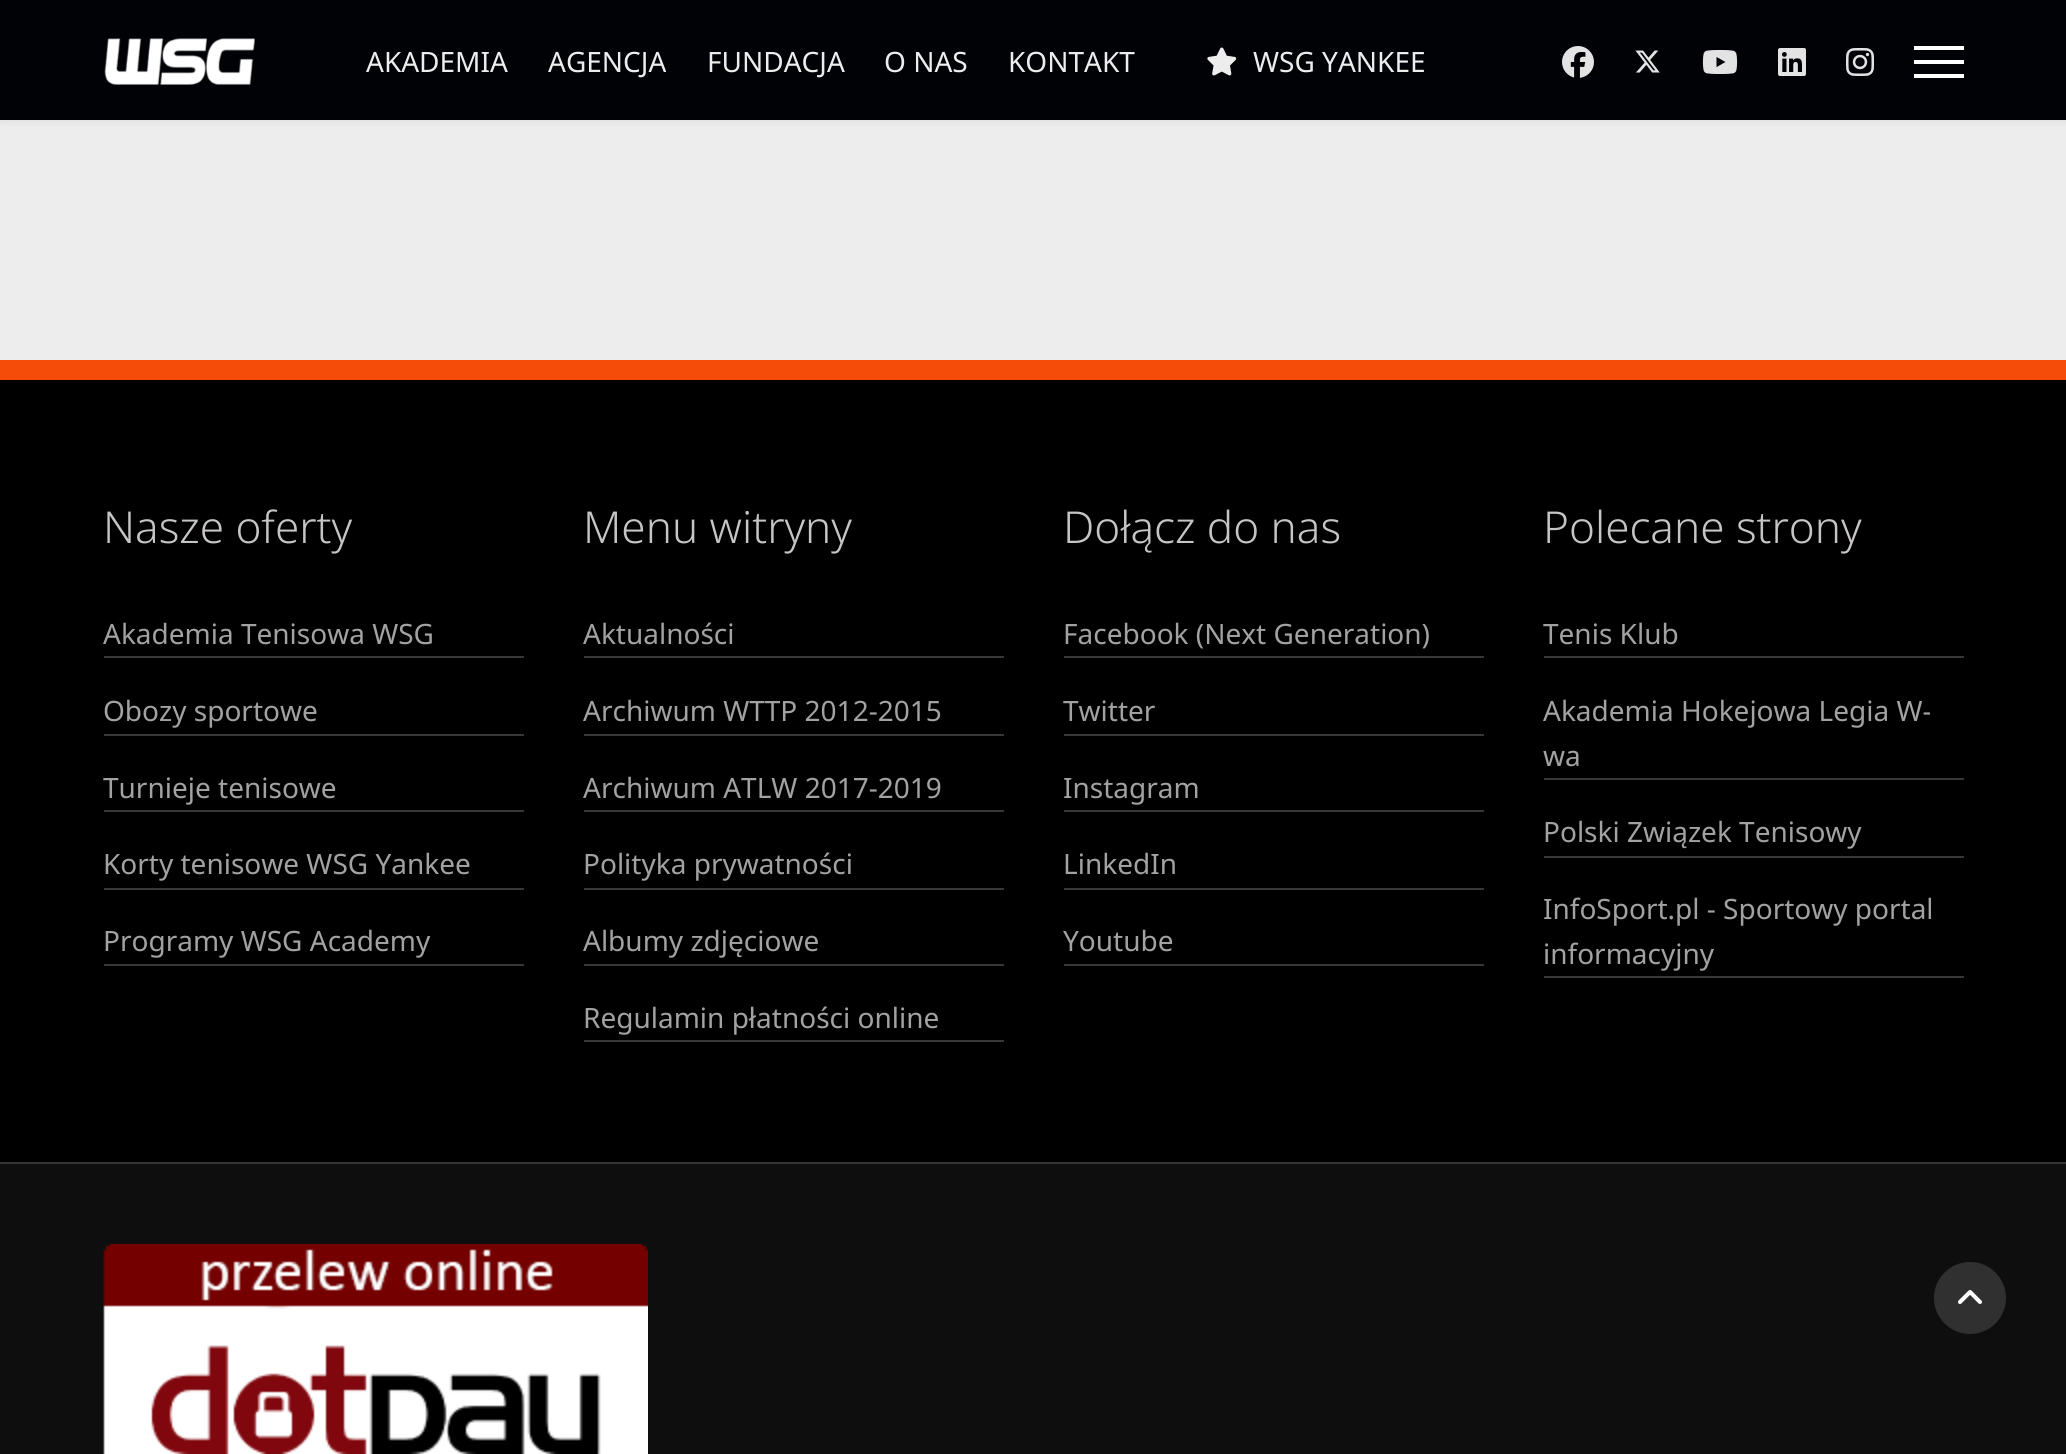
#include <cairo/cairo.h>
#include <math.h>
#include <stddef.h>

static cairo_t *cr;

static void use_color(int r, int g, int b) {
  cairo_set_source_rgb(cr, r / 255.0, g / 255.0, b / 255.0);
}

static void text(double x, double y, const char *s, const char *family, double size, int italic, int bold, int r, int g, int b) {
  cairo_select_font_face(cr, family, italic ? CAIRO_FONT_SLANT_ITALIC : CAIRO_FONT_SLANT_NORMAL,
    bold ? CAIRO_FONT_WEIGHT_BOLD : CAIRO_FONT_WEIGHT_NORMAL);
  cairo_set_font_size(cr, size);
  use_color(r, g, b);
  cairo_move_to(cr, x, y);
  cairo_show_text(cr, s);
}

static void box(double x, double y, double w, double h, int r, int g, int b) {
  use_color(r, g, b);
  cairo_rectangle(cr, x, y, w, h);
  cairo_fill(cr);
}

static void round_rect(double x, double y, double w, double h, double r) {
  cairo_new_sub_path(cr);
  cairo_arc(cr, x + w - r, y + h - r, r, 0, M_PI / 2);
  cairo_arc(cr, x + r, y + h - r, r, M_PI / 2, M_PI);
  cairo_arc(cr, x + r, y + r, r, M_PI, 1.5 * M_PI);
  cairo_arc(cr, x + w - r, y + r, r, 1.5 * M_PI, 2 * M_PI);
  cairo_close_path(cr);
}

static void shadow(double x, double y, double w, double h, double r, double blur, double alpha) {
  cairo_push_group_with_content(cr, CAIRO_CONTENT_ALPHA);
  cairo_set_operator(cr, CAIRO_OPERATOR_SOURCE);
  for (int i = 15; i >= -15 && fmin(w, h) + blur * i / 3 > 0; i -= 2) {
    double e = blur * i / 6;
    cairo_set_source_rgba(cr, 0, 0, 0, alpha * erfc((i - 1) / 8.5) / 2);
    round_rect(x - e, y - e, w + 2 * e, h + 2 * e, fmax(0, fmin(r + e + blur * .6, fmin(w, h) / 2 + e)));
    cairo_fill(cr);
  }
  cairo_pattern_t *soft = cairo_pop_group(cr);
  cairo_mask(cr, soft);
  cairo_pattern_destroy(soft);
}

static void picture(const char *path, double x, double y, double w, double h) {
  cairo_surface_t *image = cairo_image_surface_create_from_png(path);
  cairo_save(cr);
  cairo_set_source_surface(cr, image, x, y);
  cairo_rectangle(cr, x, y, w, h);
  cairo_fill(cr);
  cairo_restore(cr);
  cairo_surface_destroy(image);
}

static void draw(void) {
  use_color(237, 237, 237);
  cairo_paint(cr);
  use_color(0, 0, 0);
  shadow(0, 0, 2066, 120, 0, 4, 0.1);
  box(0, 0, 2066, 120, 0, 2, 6);
  picture("img_01.png", 104, 38, 151, 47);
  picture("img_02.png", 1207, 47, 30, 29);
  picture("img_03.png", 1562, 46, 32, 32);
  picture("img_04.png", 1635, 50, 25, 23);
  picture("img_05.png", 1702, 50, 36, 24);
  picture("img_06.png", 1778, 48, 28, 28);
  picture("img_07.png", 1846, 48, 28, 28);
  box(1914, 46, 50, 4, 255, 255, 255);
  box(1914, 60, 50, 4, 255, 255, 255);
  box(1914, 74, 50, 4, 255, 255, 255);
  box(0, 380, 2066, 782, 0, 0, 0);
  box(0, 360, 2066, 20, 245, 76, 10);
  box(0, 1162, 2066, 2, 53, 53, 53);
  box(104, 656, 420, 2, 56, 55, 55);
  box(104, 734, 420, 2, 56, 55, 55);
  box(104, 810, 420, 2, 56, 55, 55);
  box(104, 888, 420, 2, 56, 55, 55);
  box(104, 964, 420, 2, 56, 55, 55);
  box(584, 656, 420, 2, 56, 55, 55);
  box(584, 734, 420, 2, 56, 55, 55);
  box(584, 810, 420, 2, 56, 55, 55);
  box(584, 888, 420, 2, 56, 55, 55);
  box(584, 964, 420, 2, 56, 55, 55);
  box(584, 1040, 420, 2, 56, 55, 55);
  box(1064, 656, 420, 2, 56, 55, 55);
  box(1064, 734, 420, 2, 56, 55, 55);
  box(1064, 810, 420, 2, 56, 55, 55);
  box(1064, 888, 420, 2, 56, 55, 55);
  box(1064, 964, 420, 2, 56, 55, 55);
  box(1544, 656, 420, 2, 56, 55, 55);
  box(1544, 778, 420, 2, 56, 55, 55);
  box(1544, 856, 420, 2, 56, 55, 55);
  box(1544, 976, 420, 2, 56, 55, 55);
  box(0, 1164, 2066, 290, 14, 14, 14);
  picture("img_08.png", 103, 1244, 545, 210);
  use_color(48, 48, 48);
  cairo_arc(cr, 1970, 1298, 36, 0, 2 * M_PI);
  cairo_fill(cr);
  picture("img_09.png", 1958, 1290, 24, 14);
  text(366, 72, "AKADEMIA", "Noto Sans", 28, 0, 0, 237, 237, 237);
  text(548, 72, "AGENCJA", "Noto Sans", 28, 0, 0, 237, 237, 237);
  text(707, 72, "FUNDACJA", "Noto Sans", 28, 0, 0, 237, 237, 237);
  text(884, 72, "O NAS", "Noto Sans", 28, 0, 0, 237, 237, 237);
  text(1008, 72, "KONTAKT", "Noto Sans", 28, 0, 0, 237, 237, 237);
  text(1253, 72, "WSG YANKEE", "Noto Sans", 28, 0, 0, 237, 237, 237);
  text(103, 543, "Nasze oferty", "Noto Sans Light", 44, 0, 0, 199, 196, 196);
  text(103, 644, "Akademia Tenisowa WSG", "Noto Sans", 28, 0, 0, 162, 162, 162);
  text(103, 721, "Obozy sportowe", "Noto Sans", 28, 0, 0, 162, 162, 162);
  text(103, 798, "Turnieje tenisowe", "Noto Sans", 28, 0, 0, 162, 162, 162);
  text(103, 874, "Korty tenisowe WSG Yankee", "Noto Sans", 28, 0, 0, 162, 162, 162);
  text(103, 951, "Programy WSG Academy", "Noto Sans", 28, 0, 0, 162, 162, 162);
  text(583, 543, "Menu witryny", "Noto Sans Light", 44, 0, 0, 199, 196, 196);
  text(583, 644, "Aktualności", "Noto Sans", 28, 0, 0, 162, 162, 162);
  text(583, 721, "Archiwum WTTP 2012-2015", "Noto Sans", 28, 0, 0, 162, 162, 162);
  text(583, 798, "Archiwum ATLW 2017-2019", "Noto Sans", 28, 0, 0, 162, 162, 162);
  text(583, 874, "Polityka prywatności", "Noto Sans", 28, 0, 0, 162, 162, 162);
  text(583, 951, "Albumy zdjęciowe", "Noto Sans", 28, 0, 0, 162, 162, 162);
  text(583, 1028, "Regulamin płatności online", "Noto Sans", 28, 0, 0, 162, 162, 162);
  text(1063, 543, "Dołącz do nas", "Noto Sans Light", 44, 0, 0, 199, 196, 196);
  text(1063, 644, "Facebook (Next Generation)", "Noto Sans", 28, 0, 0, 162, 162, 162);
  text(1063, 721, "Twitter", "Noto Sans", 28, 0, 0, 162, 162, 162);
  text(1063, 798, "Instagram", "Noto Sans", 28, 0, 0, 162, 162, 162);
  text(1063, 874, "LinkedIn", "Noto Sans", 28, 0, 0, 162, 162, 162);
  text(1063, 951, "Youtube", "Noto Sans", 28, 0, 0, 162, 162, 162);
  text(1543, 543, "Polecane strony", "Noto Sans Light", 44, 0, 0, 199, 196, 196);
  text(1543, 644, "Tenis Klub", "Noto Sans", 28, 0, 0, 162, 162, 162);
  text(1543, 721, "Akademia Hokejowa Legia W-", "Noto Sans", 28, 0, 0, 162, 162, 162);
  text(1543, 766, "wa", "Noto Sans", 28, 0, 0, 162, 162, 162);
  text(1543, 842, "Polski Związek Tenisowy", "Noto Sans", 28, 0, 0, 162, 162, 162);
  text(1543, 919, "InfoSport.pl - Sportowy portal", "Noto Sans", 28, 0, 0, 162, 162, 162);
  text(1543, 964, "informacyjny", "Noto Sans", 28, 0, 0, 162, 162, 162);
}

int main(void) {
  cairo_surface_t *surface = cairo_image_surface_create(CAIRO_FORMAT_RGB24, 2066, 1454);
  cr = cairo_create(surface);
  cairo_font_options_t *options = cairo_font_options_create();
  cairo_font_options_set_hint_metrics(options, CAIRO_HINT_METRICS_OFF);
  cairo_font_options_set_hint_style(options, CAIRO_HINT_STYLE_NONE);
  cairo_set_font_options(cr, options);
  cairo_set_miter_limit(cr, 4);
  draw();
  cairo_surface_write_to_png(surface, "out.png");
  cairo_font_options_destroy(options);
  cairo_destroy(cr);
  cairo_surface_destroy(surface);
  return 0;
}
